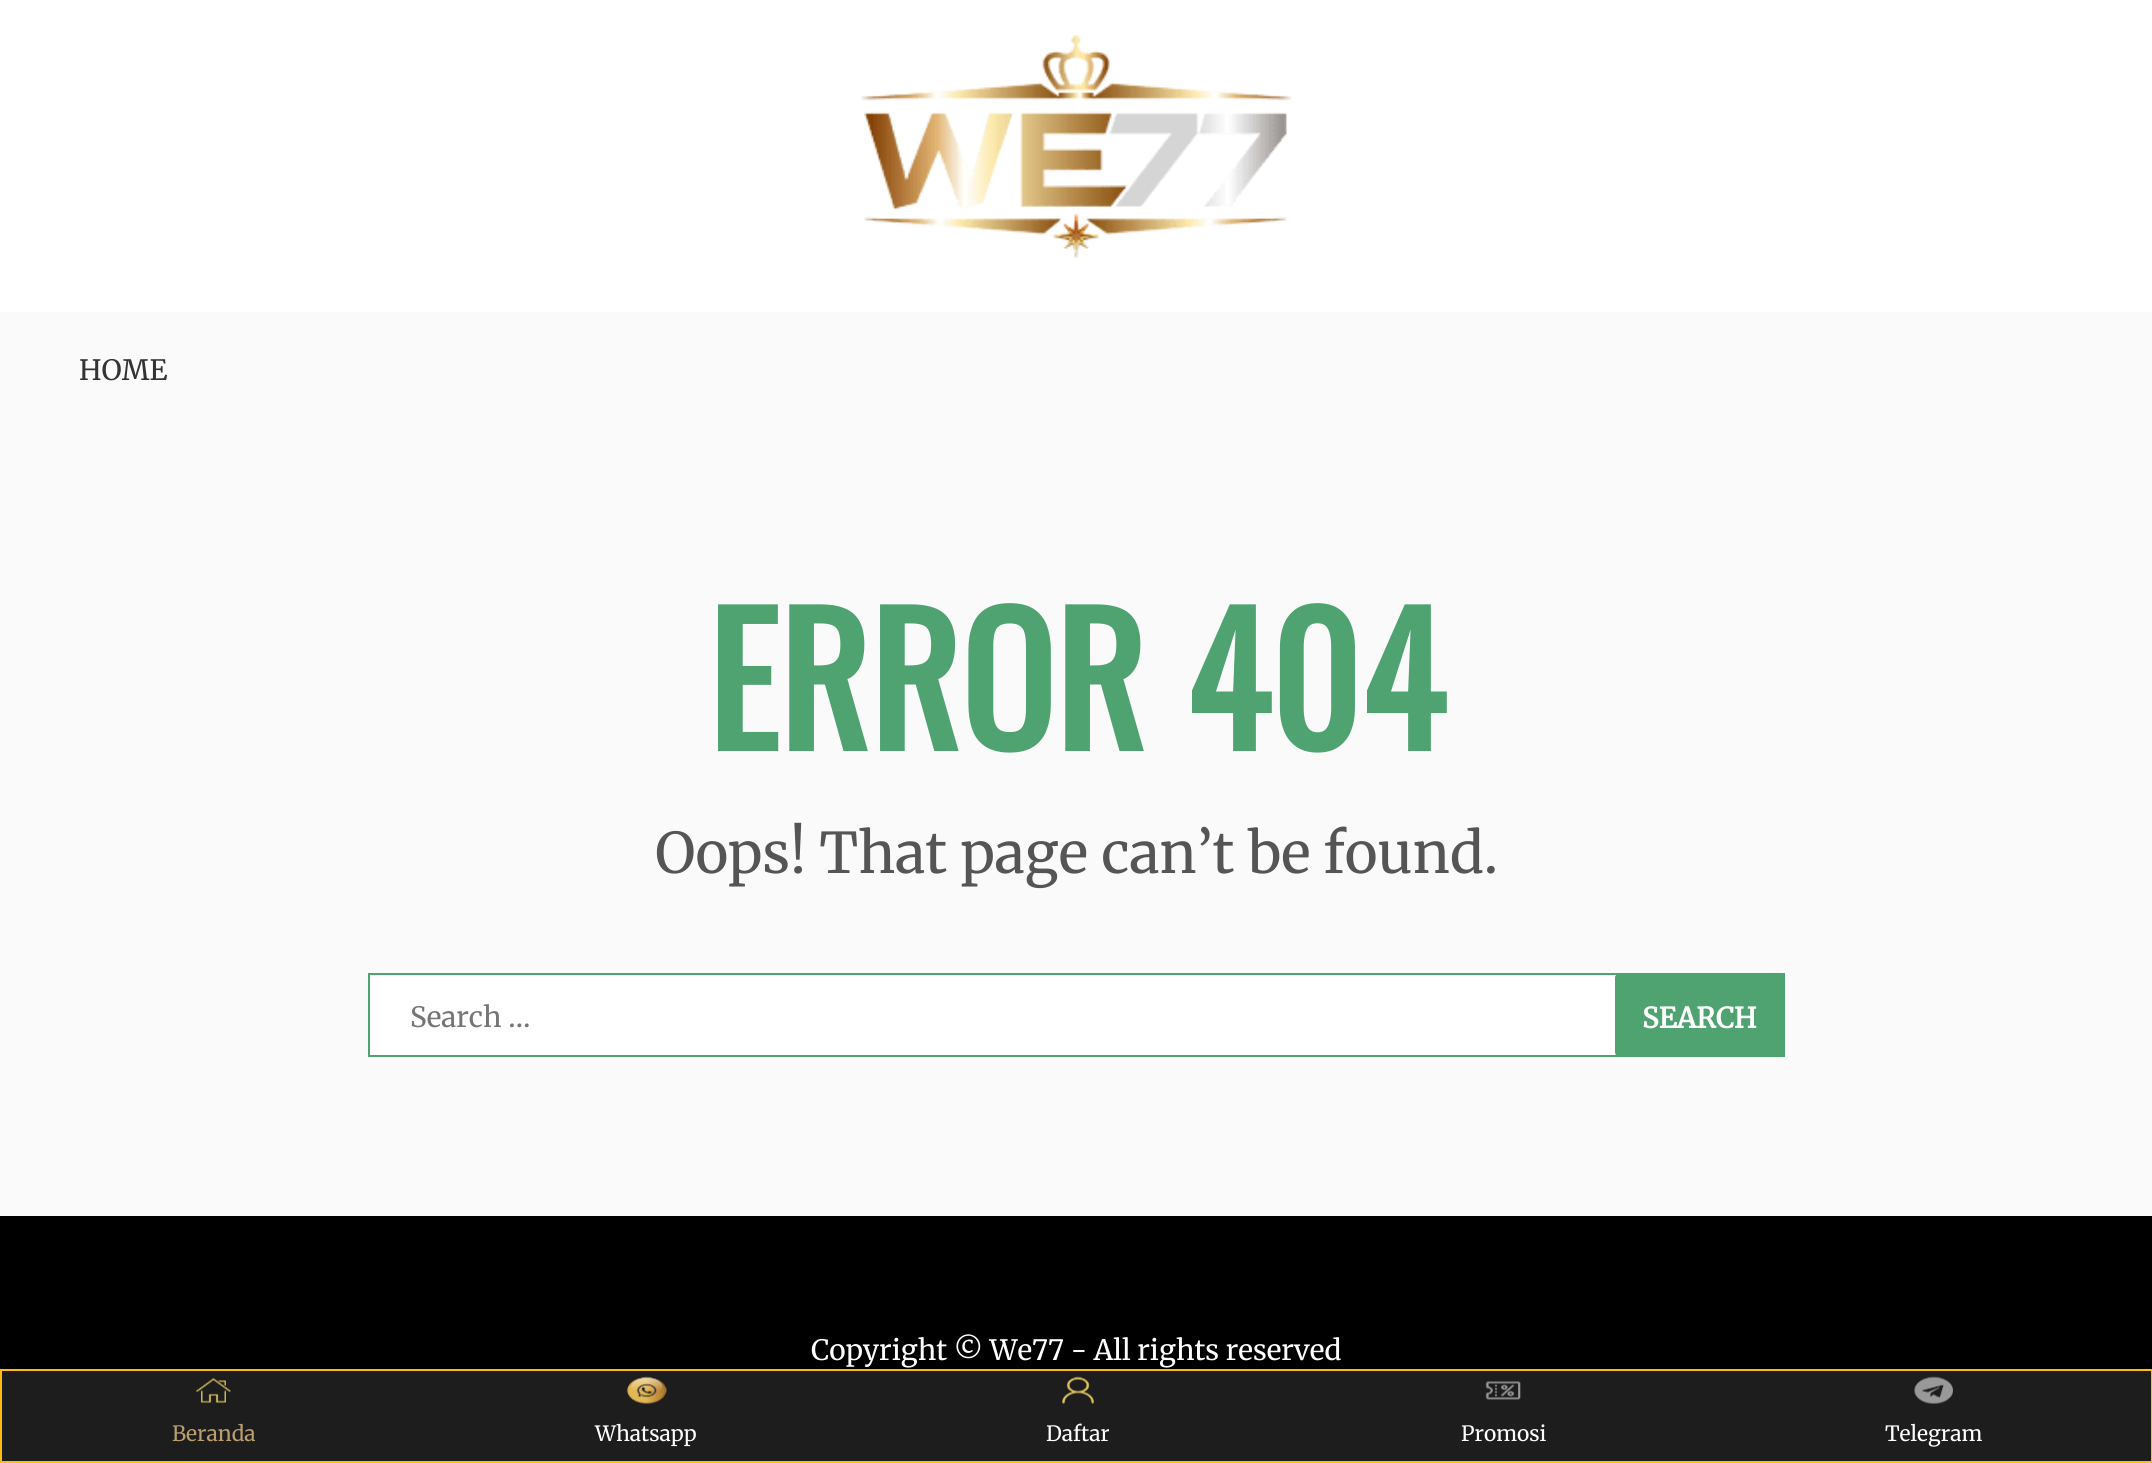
#include <cairo/cairo.h>
#include <math.h>
#include <stddef.h>

static cairo_t *cr;

static void use_color(int r, int g, int b) {
  cairo_set_source_rgb(cr, r / 255.0, g / 255.0, b / 255.0);
}

static void text(double x, double y, const char *s, const char *family, double size, int italic, int bold, int r, int g, int b) {
  cairo_select_font_face(cr, family, italic ? CAIRO_FONT_SLANT_ITALIC : CAIRO_FONT_SLANT_NORMAL,
    bold ? CAIRO_FONT_WEIGHT_BOLD : CAIRO_FONT_WEIGHT_NORMAL);
  cairo_set_font_size(cr, size);
  use_color(r, g, b);
  cairo_move_to(cr, x, y);
  cairo_show_text(cr, s);
}

static void box(double x, double y, double w, double h, int r, int g, int b) {
  use_color(r, g, b);
  cairo_rectangle(cr, x, y, w, h);
  cairo_fill(cr);
}

static void round_rect(double x, double y, double w, double h, double r) {
  cairo_new_sub_path(cr);
  cairo_arc(cr, x + w - r, y + h - r, r, 0, M_PI / 2);
  cairo_arc(cr, x + r, y + h - r, r, M_PI / 2, M_PI);
  cairo_arc(cr, x + r, y + r, r, M_PI, 1.5 * M_PI);
  cairo_arc(cr, x + w - r, y + r, r, 1.5 * M_PI, 2 * M_PI);
  cairo_close_path(cr);
}

static void picture(const char *path, double x, double y, double w, double h) {
  cairo_surface_t *image = cairo_image_surface_create_from_png(path);
  cairo_save(cr);
  cairo_set_source_surface(cr, image, x, y);
  cairo_rectangle(cr, x, y, w, h);
  cairo_fill(cr);
  cairo_restore(cr);
  cairo_surface_destroy(image);
}

static void draw(void) {
  use_color(250, 250, 250);
  cairo_paint(cr);
  box(0, 0, 2152, 312, 255, 255, 255);
  picture("img_01.png", 860, 35, 432, 224);
  box(370, 975, 1246, 80, 255, 255, 255);
  cairo_rectangle(cr, 369, 974, 1415, 82);
  use_color(78, 163, 113);
  cairo_stroke(cr);
  round_rect(1615, 973, 170, 84, 5);
  cairo_fill(cr);
  box(0, 1216, 2152, 153, 0, 0, 0);
  use_color(29, 29, 29);
  cairo_rectangle(cr, 1, 1370, 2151, 92);
  cairo_fill_preserve(cr);
  use_color(255, 188, 12);
  cairo_stroke(cr);
  picture("img_02.png", 196, 1378, 35, 25);
  picture("img_03.png", 627, 1376, 40, 28);
  picture("img_04.png", 1062, 1376, 32, 28);
  picture("img_05.png", 1485, 1381, 36, 19);
  picture("img_06.png", 1914, 1376, 39, 28);
  text(79, 380, "HOME", "Merriweather Light", 28, 0, 0, 51, 51, 51);
  text(707, 751, "ERROR 404", "Oswald", 175, 0, 1, 78, 163, 113);
  text(655, 873, "Oops! That page can’t be found.", "Merriweather Light", 56, 0, 0, 85, 85, 85);
  text(410, 1027, "Search …", "Merriweather Light", 28, 0, 0, 117, 117, 117);
  text(1642, 1028, "SEARCH", "Merriweather", 28, 0, 1, 255, 255, 255);
  text(811, 1360, "Copyright © We77 - All rights reserved", "Merriweather Light", 28, 0, 0, 255, 255, 255);
  text(172, 1441, "Beranda", "Merriweather Light", 21, 0, 0, 186, 159, 110);
  text(595, 1441, "Whatsapp", "Merriweather Light", 21, 0, 0, 255, 255, 255);
  text(1046, 1441, "Daftar", "Merriweather Light", 21, 0, 0, 255, 255, 255);
  text(1461, 1441, "Promosi", "Merriweather Light", 21, 0, 0, 255, 255, 255);
  text(1885, 1441, "Telegram", "Merriweather Light", 21, 0, 0, 255, 255, 255);
}

int main(void) {
  cairo_surface_t *surface = cairo_image_surface_create(CAIRO_FORMAT_RGB24, 2152, 1463);
  cr = cairo_create(surface);
  cairo_font_options_t *options = cairo_font_options_create();
  cairo_font_options_set_hint_metrics(options, CAIRO_HINT_METRICS_OFF);
  cairo_font_options_set_hint_style(options, CAIRO_HINT_STYLE_NONE);
  cairo_set_font_options(cr, options);
  cairo_set_miter_limit(cr, 4);
  draw();
  cairo_surface_write_to_png(surface, "out.png");
  cairo_font_options_destroy(options);
  cairo_destroy(cr);
  cairo_surface_destroy(surface);
  return 0;
}
